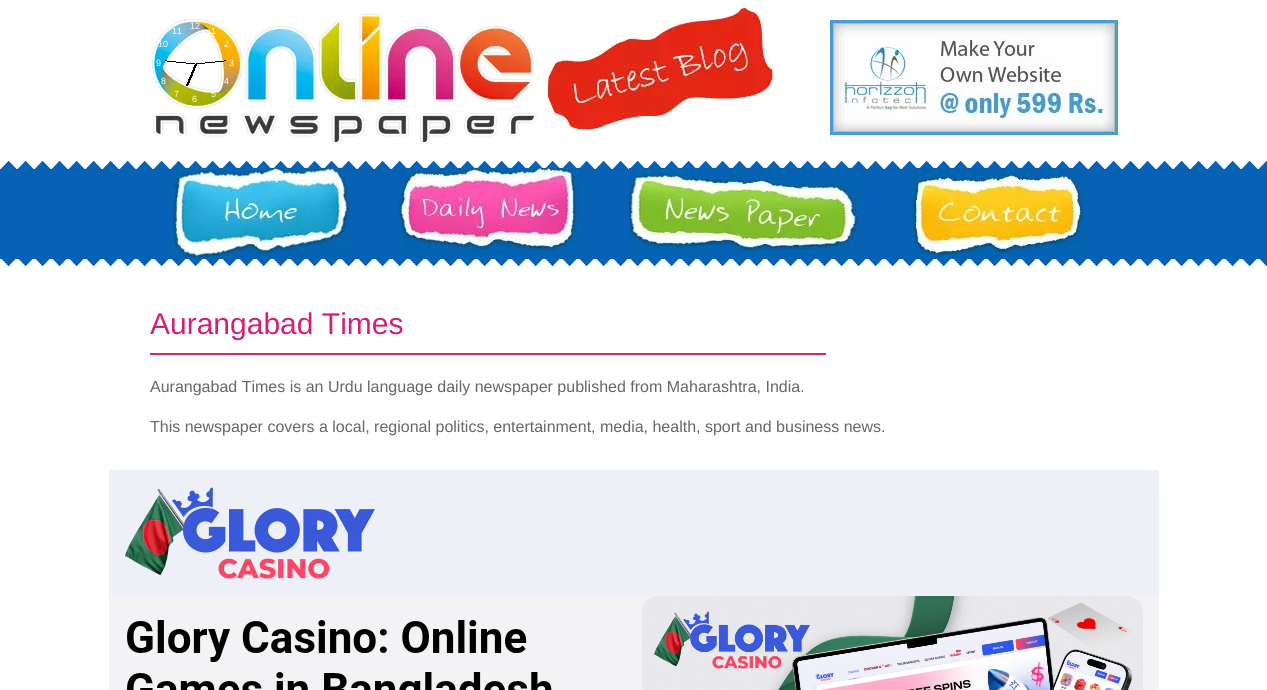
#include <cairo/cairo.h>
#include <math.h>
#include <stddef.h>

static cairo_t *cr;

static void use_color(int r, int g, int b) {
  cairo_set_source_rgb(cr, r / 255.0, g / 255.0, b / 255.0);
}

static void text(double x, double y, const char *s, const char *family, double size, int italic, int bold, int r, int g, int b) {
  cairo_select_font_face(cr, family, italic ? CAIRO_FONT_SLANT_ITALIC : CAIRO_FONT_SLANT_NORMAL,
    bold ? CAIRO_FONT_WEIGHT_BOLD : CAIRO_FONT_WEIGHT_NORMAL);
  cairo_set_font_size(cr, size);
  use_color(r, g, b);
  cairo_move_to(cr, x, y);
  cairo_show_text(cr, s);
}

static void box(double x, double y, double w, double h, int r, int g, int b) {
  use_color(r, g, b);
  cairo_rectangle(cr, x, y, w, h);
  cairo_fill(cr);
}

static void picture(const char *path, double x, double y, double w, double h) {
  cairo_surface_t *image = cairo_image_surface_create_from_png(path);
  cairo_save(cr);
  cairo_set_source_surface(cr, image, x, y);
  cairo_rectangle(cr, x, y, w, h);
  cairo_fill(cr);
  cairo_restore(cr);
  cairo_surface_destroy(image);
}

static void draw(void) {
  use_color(255, 255, 255);
  cairo_paint(cr);
  picture("img_01.png", 151, 13, 386, 132);
  picture("img_02.png", 546, 7, 232, 127);
  box(830, 20, 288, 115, 70, 157, 210);
  picture("img_03.png", 833, 23, 282, 109);
  box(165, 60, 2, 1, 0, 0, 0);
  box(224, 60, 2, 1, 0, 0, 0);
  box(167, 61, 9, 1, 0, 0, 0);
  box(215, 61, 9, 1, 0, 0, 0);
  box(176, 62, 10, 1, 0, 0, 0);
  box(205, 62, 10, 1, 0, 0, 0);
  box(186, 63, 9, 1, 0, 0, 0);
  box(196, 63, 9, 1, 0, 0, 0);
  box(186, 84, 2, 2, 0, 0, 0);
  box(187, 82, 2, 3, 0, 0, 0);
  box(188, 79, 2, 4, 0, 0, 0);
  box(189, 77, 2, 3, 0, 0, 0);
  box(190, 75, 2, 3, 0, 0, 0);
  box(191, 72, 2, 4, 0, 0, 0);
  box(192, 70, 2, 3, 0, 0, 0);
  box(193, 67, 2, 4, 0, 0, 0);
  box(194, 65, 2, 3, 0, 0, 0);
  box(195, 64, 2, 2, 0, 0, 0);
  picture("img_04.png", 0, 160, 1267, 107);
  picture("img_05.png", 173, 168, 177, 89);
  picture("img_06.png", 399, 168, 181, 89);
  picture("img_07.png", 629, 168, 231, 89);
  picture("img_08.png", 912, 168, 175, 89);
  box(150, 353, 676, 2, 209, 32, 121);
  picture("img_09.png", 109, 470, 1050, 220);
  text(190, 29, "12", "Liberation Sans", 9, 0, 0, 255, 255, 255);
  text(172, 34, "11", "Liberation Sans", 9, 0, 0, 255, 255, 255);
  text(211, 34, "1", "Liberation Sans", 9, 0, 0, 255, 255, 255);
  text(158, 47, "10", "Liberation Sans", 9, 0, 0, 255, 255, 255);
  text(224, 47, "2", "Liberation Sans", 9, 0, 0, 255, 255, 255);
  text(156, 66, "9", "Liberation Sans", 9, 0, 0, 255, 255, 255);
  text(229, 66, "3", "Liberation Sans", 9, 0, 0, 255, 255, 255);
  text(161, 84, "8", "Liberation Sans", 9, 0, 0, 255, 255, 255);
  text(224, 84, "4", "Liberation Sans", 9, 0, 0, 255, 255, 255);
  text(174, 97, "7", "Liberation Sans", 9, 0, 0, 255, 255, 255);
  text(211, 97, "5", "Liberation Sans", 9, 0, 0, 255, 255, 255);
  text(192, 102, "6", "Liberation Sans", 9, 0, 0, 255, 255, 255);
  text(150, 334, "Aurangabad Times", "Liberation Sans", 30, 0, 0, 209, 32, 121);
  text(150, 392, "Aurangabad Times is an Urdu language daily newspaper published from Maharashtra, India.", "Liberation Sans", 16, 0, 0, 102, 102, 102);
  text(150, 432, "This newspaper covers a local, regional politics, entertainment, media, health, sport and business news.", "Liberation Sans", 16, 0, 0, 102, 102, 102);
}

int main(void) {
  cairo_surface_t *surface = cairo_image_surface_create(CAIRO_FORMAT_RGB24, 1267, 690);
  cr = cairo_create(surface);
  cairo_font_options_t *options = cairo_font_options_create();
  cairo_font_options_set_hint_metrics(options, CAIRO_HINT_METRICS_OFF);
  cairo_font_options_set_hint_style(options, CAIRO_HINT_STYLE_NONE);
  cairo_set_font_options(cr, options);
  cairo_set_miter_limit(cr, 4);
  draw();
  cairo_surface_write_to_png(surface, "out.png");
  cairo_font_options_destroy(options);
  cairo_destroy(cr);
  cairo_surface_destroy(surface);
  return 0;
}
